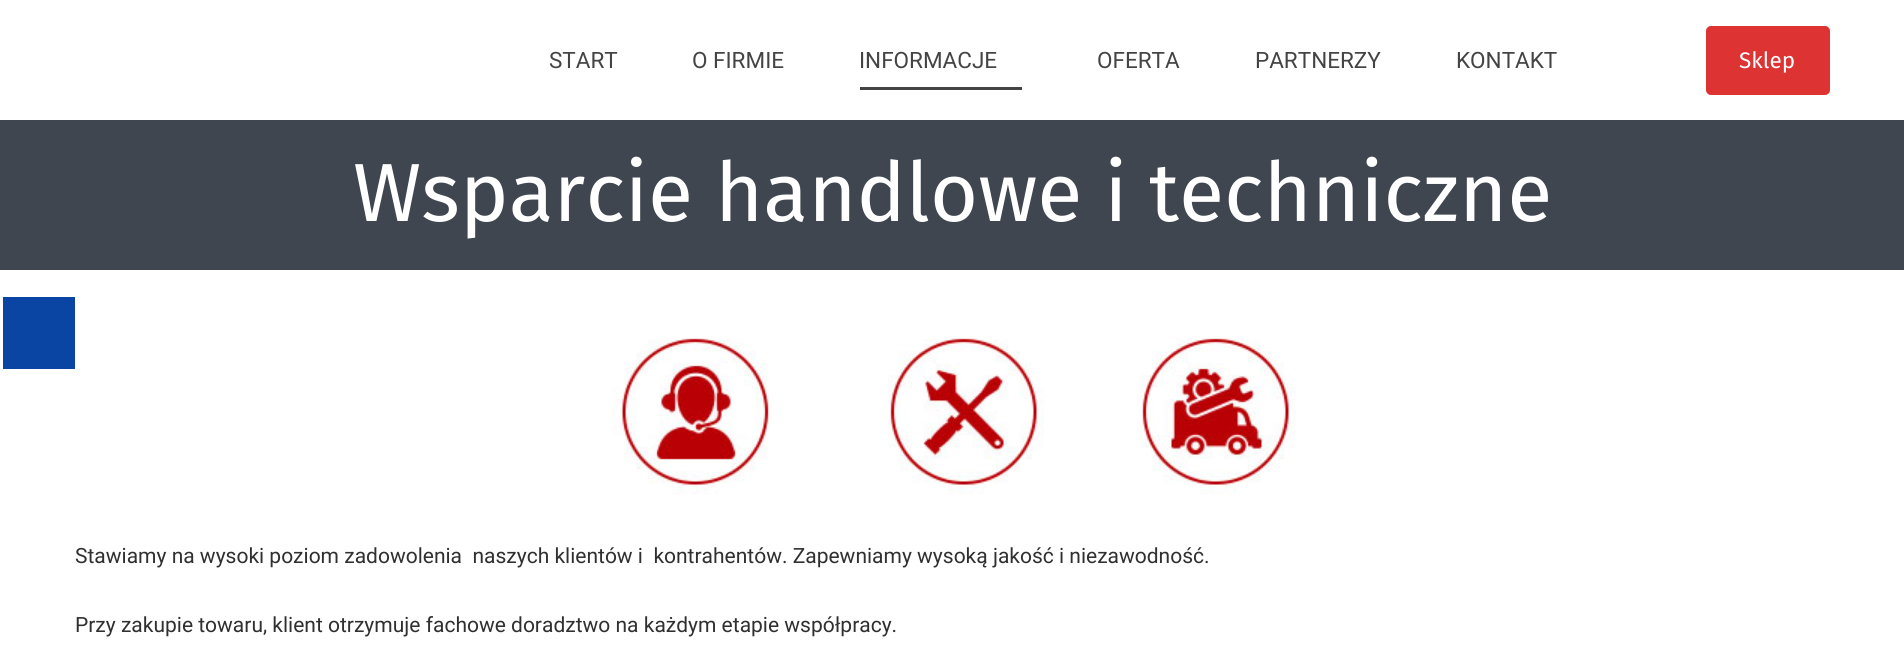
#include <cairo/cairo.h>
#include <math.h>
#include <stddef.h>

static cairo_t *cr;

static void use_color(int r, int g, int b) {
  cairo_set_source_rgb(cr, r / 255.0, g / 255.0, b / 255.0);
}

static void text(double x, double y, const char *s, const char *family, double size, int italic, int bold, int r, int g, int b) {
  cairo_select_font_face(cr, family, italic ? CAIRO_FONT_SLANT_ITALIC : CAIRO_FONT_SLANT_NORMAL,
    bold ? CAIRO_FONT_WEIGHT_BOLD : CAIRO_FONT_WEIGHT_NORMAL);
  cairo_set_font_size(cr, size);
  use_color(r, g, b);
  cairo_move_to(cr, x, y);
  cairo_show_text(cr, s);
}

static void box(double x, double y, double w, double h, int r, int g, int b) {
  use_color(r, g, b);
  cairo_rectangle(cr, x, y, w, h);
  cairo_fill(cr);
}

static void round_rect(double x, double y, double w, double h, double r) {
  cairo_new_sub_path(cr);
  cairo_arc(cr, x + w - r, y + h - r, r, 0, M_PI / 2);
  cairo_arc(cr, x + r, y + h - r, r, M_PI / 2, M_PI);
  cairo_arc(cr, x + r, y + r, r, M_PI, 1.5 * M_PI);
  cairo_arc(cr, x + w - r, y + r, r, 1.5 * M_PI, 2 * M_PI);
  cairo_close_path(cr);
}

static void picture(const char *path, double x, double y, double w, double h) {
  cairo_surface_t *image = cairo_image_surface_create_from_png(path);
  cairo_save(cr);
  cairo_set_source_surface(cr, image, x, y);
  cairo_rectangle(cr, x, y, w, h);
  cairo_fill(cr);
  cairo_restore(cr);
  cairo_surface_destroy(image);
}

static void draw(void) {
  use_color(255, 255, 255);
  cairo_paint(cr);
  box(3, 297, 72, 72, 11, 69, 163);
  box(860, 87, 162, 3, 68, 68, 68);
  use_color(221, 51, 51);
  round_rect(1706, 26, 124, 69, 5);
  cairo_fill(cr);
  box(0, 120, 1904, 150, 63, 70, 79);
  picture("img_01.png", 612, 338, 684, 157);
  text(549, 68, "START", "Roboto", 22.5, 0, 0, 68, 68, 68);
  text(692, 68, "O FIRMIE", "Roboto", 22.5, 0, 0, 68, 68, 68);
  text(859, 68, "INFORMACJE", "Roboto", 22.5, 0, 0, 68, 68, 68);
  text(1097, 68, "OFERTA", "Roboto", 22.5, 0, 0, 68, 68, 68);
  text(1255, 68, "PARTNERZY", "Roboto", 22.5, 0, 0, 68, 68, 68);
  text(1456, 68, "KONTAKT", "Roboto", 22.5, 0, 0, 68, 68, 68);
  text(1739, 68, "Sklep", "Fira Sans", 22.5, 0, 0, 255, 255, 255);
  text(353, 221, "Wsparcie handlowe i techniczne", "Fira Sans", 82.5, 0, 0, 255, 255, 255);
  text(75, 563, "Stawiamy na wysoki poziom zadowolenia  naszych klientów i  kontrahentów. Zapewniamy wysoką jakość i niezawodność.", "Roboto", 21, 0, 0, 48, 48, 48);
  text(75, 632, "Przy zakupie towaru, klient otrzymuje fachowe doradztwo na każdym etapie współpracy.", "Roboto", 21, 0, 0, 48, 48, 48);
}

int main(void) {
  cairo_surface_t *surface = cairo_image_surface_create(CAIRO_FORMAT_RGB24, 1904, 666);
  cr = cairo_create(surface);
  cairo_font_options_t *options = cairo_font_options_create();
  cairo_font_options_set_hint_metrics(options, CAIRO_HINT_METRICS_OFF);
  cairo_font_options_set_hint_style(options, CAIRO_HINT_STYLE_NONE);
  cairo_set_font_options(cr, options);
  cairo_set_miter_limit(cr, 4);
  draw();
  cairo_surface_write_to_png(surface, "out.png");
  cairo_font_options_destroy(options);
  cairo_destroy(cr);
  cairo_surface_destroy(surface);
  return 0;
}
